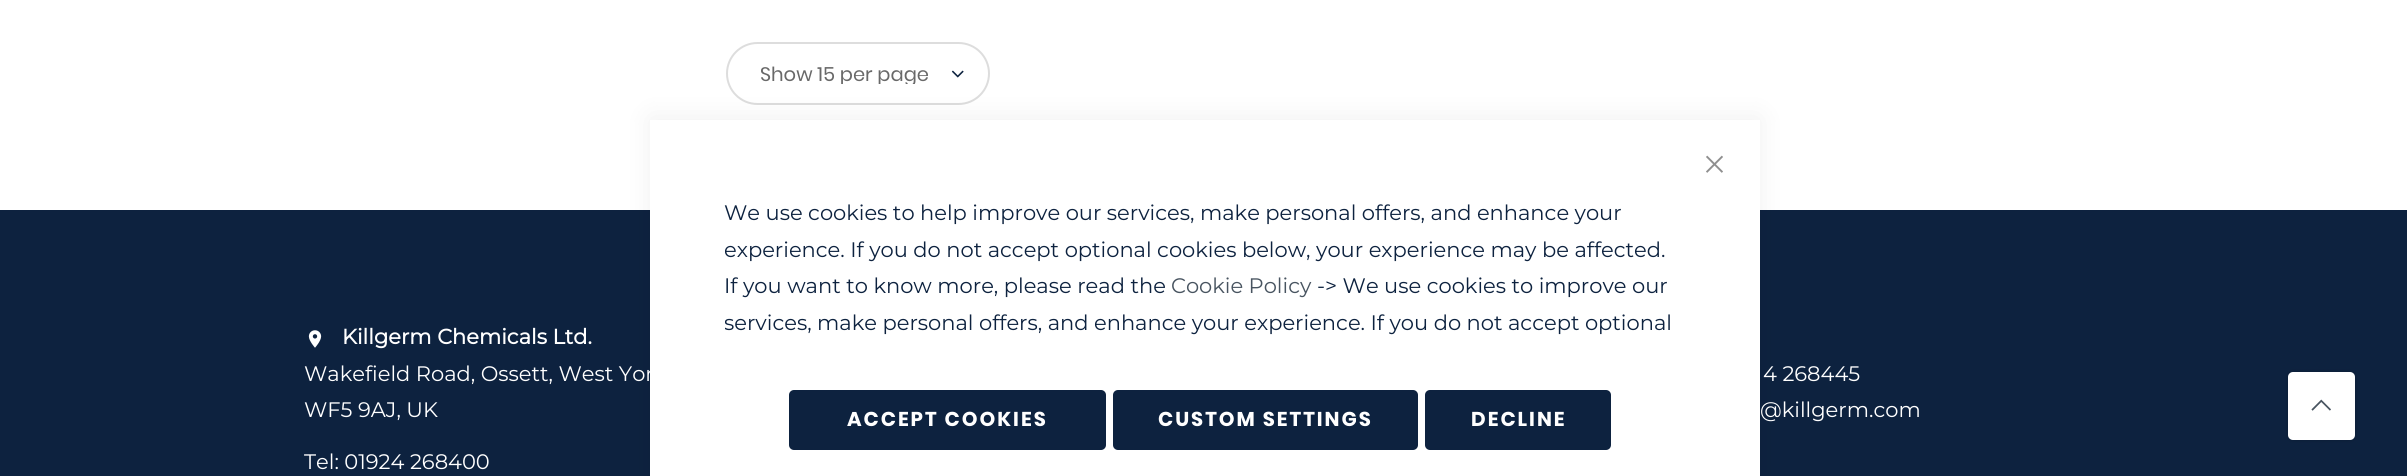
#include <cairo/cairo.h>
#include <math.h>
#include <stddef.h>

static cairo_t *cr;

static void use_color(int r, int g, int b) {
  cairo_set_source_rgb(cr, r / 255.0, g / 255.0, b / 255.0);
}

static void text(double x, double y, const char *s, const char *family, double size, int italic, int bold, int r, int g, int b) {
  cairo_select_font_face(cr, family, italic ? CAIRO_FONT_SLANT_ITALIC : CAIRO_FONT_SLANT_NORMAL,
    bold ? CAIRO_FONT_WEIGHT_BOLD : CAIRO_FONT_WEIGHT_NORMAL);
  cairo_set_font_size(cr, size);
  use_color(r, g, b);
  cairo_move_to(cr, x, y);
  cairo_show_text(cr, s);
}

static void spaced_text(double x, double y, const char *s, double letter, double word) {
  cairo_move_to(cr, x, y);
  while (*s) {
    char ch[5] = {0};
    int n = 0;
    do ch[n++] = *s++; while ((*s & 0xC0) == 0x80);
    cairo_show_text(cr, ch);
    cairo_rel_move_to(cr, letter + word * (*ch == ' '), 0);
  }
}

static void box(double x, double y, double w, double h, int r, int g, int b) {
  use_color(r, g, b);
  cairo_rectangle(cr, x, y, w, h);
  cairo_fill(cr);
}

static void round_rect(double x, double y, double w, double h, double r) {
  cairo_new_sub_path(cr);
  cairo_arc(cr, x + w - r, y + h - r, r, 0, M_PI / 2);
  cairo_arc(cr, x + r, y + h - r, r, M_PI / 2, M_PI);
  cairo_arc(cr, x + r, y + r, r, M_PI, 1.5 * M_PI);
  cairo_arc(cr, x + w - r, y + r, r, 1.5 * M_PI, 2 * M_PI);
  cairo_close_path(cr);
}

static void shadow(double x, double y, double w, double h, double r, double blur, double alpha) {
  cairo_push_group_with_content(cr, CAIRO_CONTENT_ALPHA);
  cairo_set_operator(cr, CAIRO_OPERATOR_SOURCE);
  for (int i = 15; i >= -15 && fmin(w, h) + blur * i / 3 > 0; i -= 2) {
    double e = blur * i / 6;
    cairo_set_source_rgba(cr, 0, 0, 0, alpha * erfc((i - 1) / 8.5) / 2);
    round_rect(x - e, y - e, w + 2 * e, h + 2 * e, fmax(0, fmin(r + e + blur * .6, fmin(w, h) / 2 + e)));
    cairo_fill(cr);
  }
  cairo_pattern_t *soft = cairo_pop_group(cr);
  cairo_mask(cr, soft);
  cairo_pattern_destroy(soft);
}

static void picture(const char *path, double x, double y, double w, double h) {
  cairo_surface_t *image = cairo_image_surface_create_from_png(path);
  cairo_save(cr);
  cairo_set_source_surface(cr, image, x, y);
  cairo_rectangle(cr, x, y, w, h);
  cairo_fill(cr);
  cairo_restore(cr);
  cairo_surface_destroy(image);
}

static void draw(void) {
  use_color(255, 255, 255);
  cairo_paint(cr);
  round_rect(727, 43, 262, 61, 30.5);
  use_color(221, 221, 221);
  cairo_stroke(cr);
  picture("img_01.png", 951, 70, 13, 8);
  box(0, 210, 2407, 266, 13, 34, 63);
  picture("img_02.png", 308, 330, 14, 18);
  use_color(0, 0, 0);
  shadow(2288, 372, 67, 68, 5, 2, 0.2);
  use_color(255, 255, 255);
  round_rect(2288, 372, 67, 68, 5);
  cairo_fill(cr);
  picture("img_03.png", 2311, 399, 20, 12);
  use_color(0, 0, 0);
  shadow(650, 117, 1110, 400, 0, 13.5, 0.06);
  box(650, 120, 1110, 356, 255, 255, 255);
  picture("img_04.png", 1706, 155, 17, 18);
  use_color(13, 34, 63);
  round_rect(789, 390, 317, 60, 5);
  cairo_fill(cr);
  round_rect(1113, 390, 305, 60, 5);
  cairo_fill(cr);
  round_rect(1425, 390, 186, 60, 5);
  cairo_fill(cr);
  cairo_save(cr);
  cairo_rectangle(cr, 761, 65, 175, 19);
  cairo_clip(cr);
  text(760, 81, "Show 15 per page", "Poppins", 19.5, 0, 0, 105, 105, 105);
  cairo_restore(cr);
  text(342, 344, "Killgerm Chemicals Ltd.", "Montserrat", 21, 0, 1, 255, 255, 255);
  text(304, 381, "Wakefield Road, Ossett, West Yor", "Montserrat", 21, 0, 0, 255, 255, 255);
  text(304, 417, "WF5 9AJ, UK", "Montserrat", 21, 0, 0, 255, 255, 255);
  text(304, 469, "Tel: 01924 268400", "Montserrat", 21, 0, 0, 255, 255, 255);
  text(1763, 381, "4 268445", "Montserrat", 21, 0, 0, 255, 255, 255);
  text(1760, 417, "@killgerm.com", "Montserrat", 21, 0, 0, 255, 255, 255);
  text(724, 220, "We use cookies to help improve our services, make personal offers, and enhance your", "Montserrat", 21, 0, 0, 13, 34, 63);
  cairo_save(cr);
  cairo_rectangle(cr, 725, 195, 960, 143);
  cairo_clip(cr);
  text(724, 257, "experience. If you do not accept optional cookies below, your experience may be affected.", "Montserrat", 21, 0, 0, 13, 34, 63);
  cairo_restore(cr);
  text(724, 293, "If you want to know more, please read the", "Montserrat", 21, 0, 0, 13, 34, 63);
  text(1171, 293, "Cookie Policy", "Montserrat", 21, 0, 0, 72, 84, 96);
  text(1317, 293, "-> We use cookies to improve our", "Montserrat", 21, 0, 0, 13, 34, 63);
  cairo_save(cr);
  cairo_rectangle(cr, 725, 195, 960, 143);
  cairo_clip(cr);
  text(724, 330, "services, make personal offers, and enhance your experience. If you do not accept optional", "Montserrat", 21, 0, 0, 13, 34, 63);
  cairo_restore(cr);
  cairo_select_font_face(cr, "Poppins", CAIRO_FONT_SLANT_NORMAL, CAIRO_FONT_WEIGHT_BOLD);
  cairo_set_font_size(cr, 20);
  use_color(255, 255, 255);
  spaced_text(847, 426, "ACCEPT COOKIES", 2, 0);
  spaced_text(1158, 426, "CUSTOM SETTINGS", 2, 0);
  spaced_text(1471, 426, "DECLINE", 2, 0);
}

int main(void) {
  cairo_surface_t *surface = cairo_image_surface_create(CAIRO_FORMAT_RGB24, 2407, 476);
  cr = cairo_create(surface);
  cairo_font_options_t *options = cairo_font_options_create();
  cairo_font_options_set_hint_metrics(options, CAIRO_HINT_METRICS_OFF);
  cairo_font_options_set_hint_style(options, CAIRO_HINT_STYLE_NONE);
  cairo_set_font_options(cr, options);
  cairo_set_miter_limit(cr, 4);
  draw();
  cairo_surface_write_to_png(surface, "out.png");
  cairo_font_options_destroy(options);
  cairo_destroy(cr);
  cairo_surface_destroy(surface);
  return 0;
}
